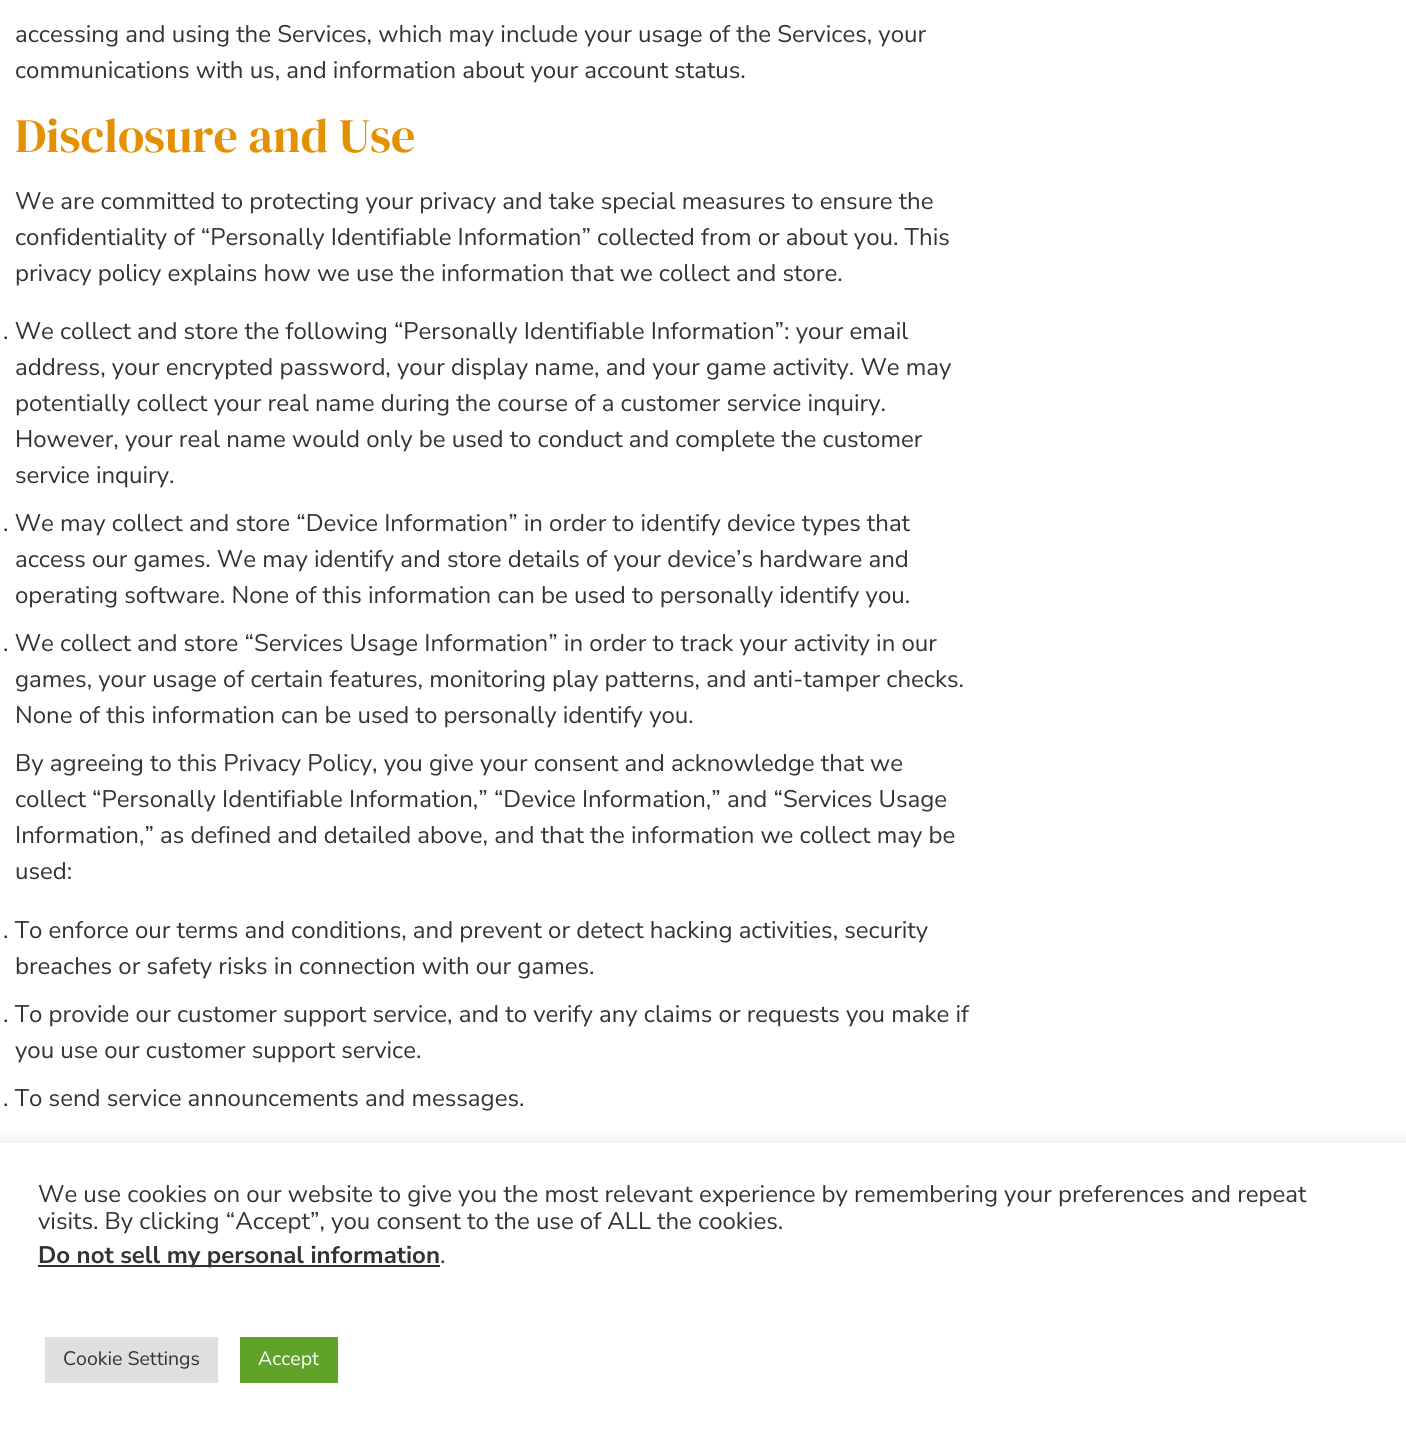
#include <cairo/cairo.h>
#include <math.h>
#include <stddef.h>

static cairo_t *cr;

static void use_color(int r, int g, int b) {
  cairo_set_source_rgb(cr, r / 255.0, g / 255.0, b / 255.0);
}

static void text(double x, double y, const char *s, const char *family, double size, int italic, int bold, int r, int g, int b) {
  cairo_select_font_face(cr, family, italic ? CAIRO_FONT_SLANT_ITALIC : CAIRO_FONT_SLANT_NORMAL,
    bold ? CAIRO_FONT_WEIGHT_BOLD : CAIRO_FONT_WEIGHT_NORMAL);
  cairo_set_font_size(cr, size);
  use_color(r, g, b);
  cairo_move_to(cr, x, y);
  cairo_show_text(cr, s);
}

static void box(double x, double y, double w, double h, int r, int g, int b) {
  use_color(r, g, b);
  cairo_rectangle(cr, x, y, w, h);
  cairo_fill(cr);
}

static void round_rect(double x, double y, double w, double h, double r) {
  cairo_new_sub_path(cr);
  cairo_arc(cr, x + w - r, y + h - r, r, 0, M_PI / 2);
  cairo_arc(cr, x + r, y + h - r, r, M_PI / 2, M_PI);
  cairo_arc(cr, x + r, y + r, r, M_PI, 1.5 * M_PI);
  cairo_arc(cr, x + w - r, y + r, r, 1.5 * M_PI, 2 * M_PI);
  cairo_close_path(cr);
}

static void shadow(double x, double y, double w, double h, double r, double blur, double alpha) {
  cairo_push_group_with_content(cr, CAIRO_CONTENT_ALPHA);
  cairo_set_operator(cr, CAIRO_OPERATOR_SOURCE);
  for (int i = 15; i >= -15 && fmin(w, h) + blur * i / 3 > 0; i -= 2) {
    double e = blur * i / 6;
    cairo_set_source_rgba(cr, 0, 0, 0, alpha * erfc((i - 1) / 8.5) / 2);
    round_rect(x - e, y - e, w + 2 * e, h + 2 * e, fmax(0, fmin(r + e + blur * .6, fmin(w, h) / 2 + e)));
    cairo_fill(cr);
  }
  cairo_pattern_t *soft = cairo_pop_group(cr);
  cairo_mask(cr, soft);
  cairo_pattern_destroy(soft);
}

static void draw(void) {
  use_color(255, 255, 255);
  cairo_paint(cr);
  use_color(172, 171, 171);
  shadow(0, 1142, 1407, 307, 0, 7.5, 0.3);
  box(0, 1143, 1406, 307, 255, 255, 255);
  box(38, 1265, 402, 2, 51, 51, 51);
  box(45, 1337, 173, 46, 222, 223, 224);
  box(240, 1337, 98, 46, 97, 162, 41);
  text(15, 42, "accessing and using the Services, which may include your usage of the Services, your", "Nunito Sans", 24, 0, 0, 51, 51, 51);
  text(15, 78, "communications with us, and information about your account status.", "Nunito Sans", 24, 0, 0, 51, 51, 51);
  text(15, 152, "Disclosure and Use", "DM Serif Display", 48, 0, 0, 227, 144, 2);
  text(15, 209, "We are committed to protecting your privacy and take special measures to ensure the", "Nunito Sans", 24, 0, 0, 51, 51, 51);
  text(15, 245, "confidentiality of “Personally Identifiable Information” collected from or about you. This", "Nunito Sans", 24, 0, 0, 51, 51, 51);
  text(15, 281, "privacy policy explains how we use the information that we collect and store.", "Nunito Sans", 24, 0, 0, 51, 51, 51);
  text(3, 339, ". We collect and store the following “Personally Identifiable Information”: your email", "Nunito Sans", 24, 0, 0, 51, 51, 51);
  text(15, 375, "address, your encrypted password, your display name, and your game activity. We may", "Nunito Sans", 24, 0, 0, 51, 51, 51);
  text(15, 411, "potentially collect your real name during the course of a customer service inquiry.", "Nunito Sans", 24, 0, 0, 51, 51, 51);
  text(15, 447, "However, your real name would only be used to conduct and complete the customer", "Nunito Sans", 24, 0, 0, 51, 51, 51);
  text(15, 483, "service inquiry.", "Nunito Sans", 24, 0, 0, 51, 51, 51);
  text(3, 531, ". We may collect and store “Device Information” in order to identify device types that", "Nunito Sans", 24, 0, 0, 51, 51, 51);
  text(15, 567, "access our games. We may identify and store details of your device’s hardware and", "Nunito Sans", 24, 0, 0, 51, 51, 51);
  text(15, 603, "operating software. None of this information can be used to personally identify you.", "Nunito Sans", 24, 0, 0, 51, 51, 51);
  text(3, 651, ". We collect and store “Services Usage Information” in order to track your activity in our", "Nunito Sans", 24, 0, 0, 51, 51, 51);
  text(15, 687, "games, your usage of certain features, monitoring play patterns, and anti-tamper checks.", "Nunito Sans", 24, 0, 0, 51, 51, 51);
  text(15, 723, "None of this information can be used to personally identify you.", "Nunito Sans", 24, 0, 0, 51, 51, 51);
  text(15, 771, "By agreeing to this Privacy Policy, you give your consent and acknowledge that we", "Nunito Sans", 24, 0, 0, 51, 51, 51);
  text(15, 807, "collect “Personally Identifiable Information,” “Device Information,” and “Services Usage", "Nunito Sans", 24, 0, 0, 51, 51, 51);
  text(15, 843, "Information,” as defined and detailed above, and that the information we collect may be", "Nunito Sans", 24, 0, 0, 51, 51, 51);
  text(15, 879, "used:", "Nunito Sans", 24, 0, 0, 51, 51, 51);
  text(3, 938, ". To enforce our terms and conditions, and prevent or detect hacking activities, security", "Nunito Sans", 24, 0, 0, 51, 51, 51);
  text(15, 974, "breaches or safety risks in connection with our games.", "Nunito Sans", 24, 0, 0, 51, 51, 51);
  text(3, 1022, ". To provide our customer support service, and to verify any claims or requests you make if", "Nunito Sans", 24, 0, 0, 51, 51, 51);
  text(15, 1058, "you use our customer support service.", "Nunito Sans", 24, 0, 0, 51, 51, 51);
  text(3, 1106, ". To send service announcements and messages.", "Nunito Sans", 24, 0, 0, 51, 51, 51);
  text(38, 1202, "We use cookies on our website to give you the most relevant experience by remembering your preferences and repeat", "Nunito Sans", 24, 0, 0, 51, 51, 51);
  text(38, 1229, "visits. By clicking “Accept”, you consent to the use of ALL the cookies.", "Nunito Sans", 24, 0, 0, 51, 51, 51);
  text(38, 1263, "Do not sell my personal information", "Nunito Sans", 24, 0, 1, 51, 51, 51);
  text(440, 1263, ".", "Nunito Sans", 24, 0, 0, 51, 51, 51);
  text(63, 1365, "Cookie Settings", "Nunito Sans", 19.5, 0, 0, 51, 51, 51);
  text(258, 1365, "Accept", "Nunito Sans", 19.5, 0, 0, 255, 255, 255);
}

int main(void) {
  cairo_surface_t *surface = cairo_image_surface_create(CAIRO_FORMAT_RGB24, 1406, 1450);
  cr = cairo_create(surface);
  cairo_font_options_t *options = cairo_font_options_create();
  cairo_font_options_set_hint_metrics(options, CAIRO_HINT_METRICS_OFF);
  cairo_font_options_set_hint_style(options, CAIRO_HINT_STYLE_NONE);
  cairo_set_font_options(cr, options);
  cairo_set_miter_limit(cr, 4);
  draw();
  cairo_surface_write_to_png(surface, "out.png");
  cairo_font_options_destroy(options);
  cairo_destroy(cr);
  cairo_surface_destroy(surface);
  return 0;
}
